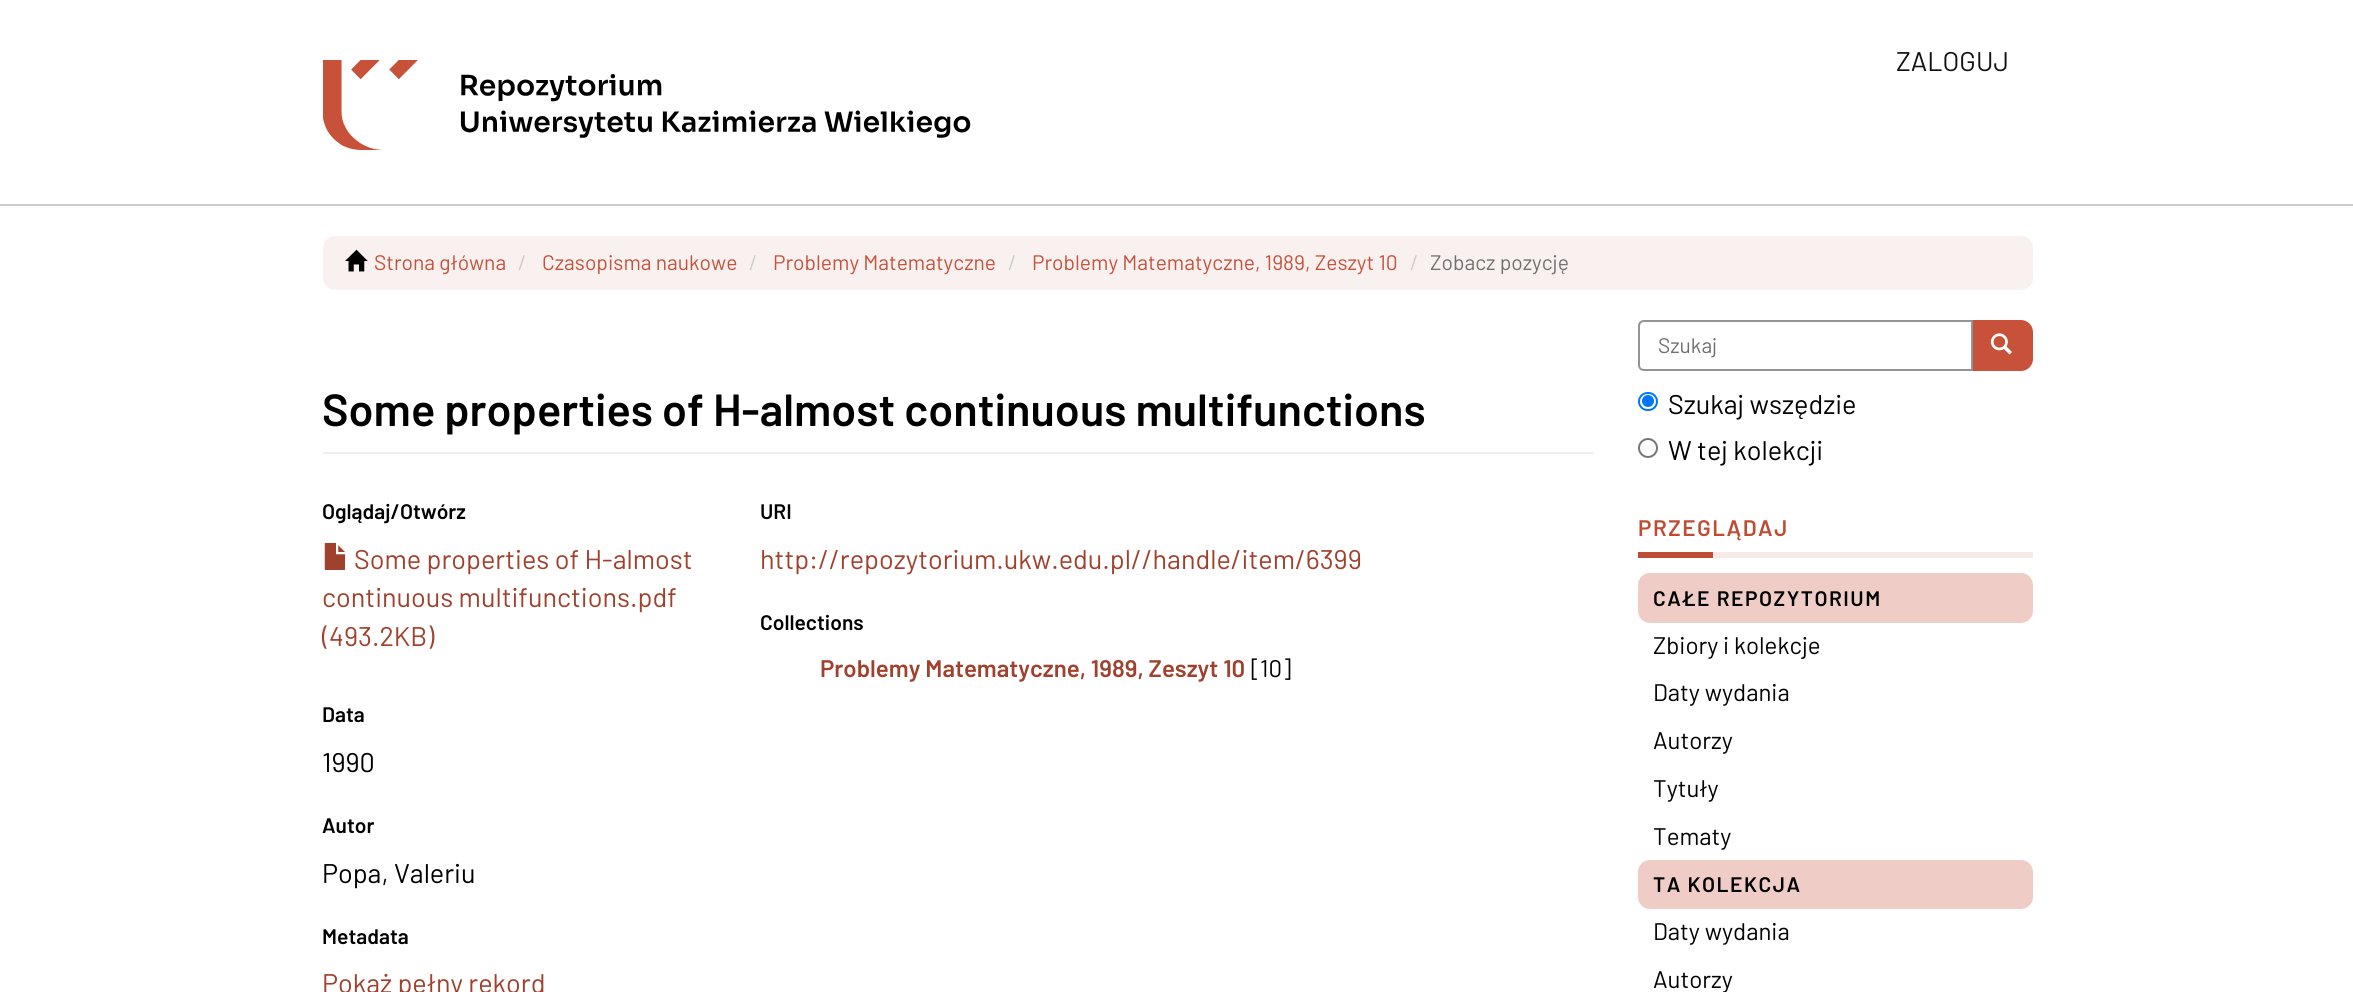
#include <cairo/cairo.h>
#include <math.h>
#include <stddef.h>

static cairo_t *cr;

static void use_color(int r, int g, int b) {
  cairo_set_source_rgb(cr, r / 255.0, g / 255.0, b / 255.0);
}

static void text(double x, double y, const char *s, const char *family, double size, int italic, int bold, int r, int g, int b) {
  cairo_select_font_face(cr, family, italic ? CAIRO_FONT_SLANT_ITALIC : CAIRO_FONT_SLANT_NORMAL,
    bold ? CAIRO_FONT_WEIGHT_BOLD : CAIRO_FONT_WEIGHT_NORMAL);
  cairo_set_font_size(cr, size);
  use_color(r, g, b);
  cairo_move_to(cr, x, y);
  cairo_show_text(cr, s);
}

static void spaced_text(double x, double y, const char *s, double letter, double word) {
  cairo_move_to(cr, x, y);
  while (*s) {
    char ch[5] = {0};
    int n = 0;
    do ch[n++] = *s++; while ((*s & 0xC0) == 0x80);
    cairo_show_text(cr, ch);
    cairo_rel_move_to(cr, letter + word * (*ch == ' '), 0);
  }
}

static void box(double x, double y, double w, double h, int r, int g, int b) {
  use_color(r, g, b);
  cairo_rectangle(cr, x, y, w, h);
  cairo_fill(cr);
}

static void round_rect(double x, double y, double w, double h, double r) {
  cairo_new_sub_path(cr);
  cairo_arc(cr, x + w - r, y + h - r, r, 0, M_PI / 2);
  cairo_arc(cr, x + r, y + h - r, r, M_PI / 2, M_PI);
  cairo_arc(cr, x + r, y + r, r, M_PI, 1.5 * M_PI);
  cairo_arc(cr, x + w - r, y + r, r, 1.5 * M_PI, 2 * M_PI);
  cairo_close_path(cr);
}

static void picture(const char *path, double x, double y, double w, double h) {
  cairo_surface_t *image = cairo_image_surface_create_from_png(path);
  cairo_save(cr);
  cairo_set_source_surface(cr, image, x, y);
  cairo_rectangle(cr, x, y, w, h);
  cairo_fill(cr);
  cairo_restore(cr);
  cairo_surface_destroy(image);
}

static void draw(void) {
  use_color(255, 255, 255);
  cairo_paint(cr);
  box(0, 204, 2353, 2, 204, 204, 204);
  picture("img_01.png", 323, 60, 648, 90);
  use_color(248, 241, 240);
  round_rect(323, 236, 1710, 54, 12);
  cairo_fill(cr);
  picture("img_02.png", 345, 249, 23, 23);
  box(323, 452, 1270, 2, 238, 238, 238);
  picture("img_03.png", 324, 543, 21, 27);
  use_color(199, 81, 57);
  cairo_new_path(cr);
  cairo_move_to(cr, 1972, 321);
  cairo_line_to(cr, 2021, 321);
  cairo_curve_to(cr, 2027, 321, 2032, 326, 2032, 332);
  cairo_line_to(cr, 2032, 359);
  cairo_curve_to(cr, 2032, 365, 2027, 370, 2021, 370);
  cairo_line_to(cr, 1972, 370);
  cairo_close_path(cr);
  cairo_fill_preserve(cr);
  cairo_stroke(cr);
  use_color(255, 255, 255);
  cairo_new_path(cr);
  cairo_move_to(cr, 1644, 320);
  cairo_line_to(cr, 1973, 320);
  cairo_line_to(cr, 1973, 371);
  cairo_line_to(cr, 1644, 371);
  cairo_curve_to(cr, 1640.5, 371, 1638, 368.5, 1638, 365);
  cairo_line_to(cr, 1638, 326);
  cairo_curve_to(cr, 1638, 322.5, 1640.5, 320, 1644, 320);
  cairo_close_path(cr);
  cairo_fill(cr);
  use_color(236, 236, 236);
  cairo_new_path(cr);
  cairo_move_to(cr, 1644, 322);
  cairo_line_to(cr, 1971, 322);
  cairo_line_to(cr, 1971, 321);
  cairo_line_to(cr, 1645, 321);
  cairo_curve_to(cr, 1642, 321, 1640, 324, 1640, 327);
  cairo_curve_to(cr, 1640, 325, 1642, 322, 1644, 322);
  cairo_close_path(cr);
  cairo_fill(cr);
  cairo_new_path(cr);
  cairo_move_to(cr, 1644, 321);
  cairo_line_to(cr, 1972, 321);
  cairo_line_to(cr, 1972, 370);
  cairo_line_to(cr, 1644, 370);
  cairo_curve_to(cr, 1641, 370, 1639, 368, 1639, 365);
  cairo_line_to(cr, 1639, 326);
  cairo_curve_to(cr, 1639, 323, 1641, 321, 1644, 321);
  cairo_close_path(cr);
  use_color(148, 148, 148);
  cairo_stroke(cr);
  picture("img_04.png", 1990, 333, 22, 22);
  round_rect(1639, 393, 18, 17, 8.5);
  use_color(0, 117, 255);
  cairo_stroke(cr);
  cairo_arc(cr, 1648, 401, 6, 0, 2 * M_PI);
  cairo_fill(cr);
  cairo_arc(cr, 1648, 448, 9, 0, 2 * M_PI);
  use_color(118, 118, 118);
  cairo_stroke(cr);
  box(1713, 552, 320, 6, 247, 235, 232);
  box(1638, 552, 75, 6, 190, 77, 53);
  use_color(239, 205, 198);
  round_rect(1638, 573, 395, 50, 12);
  cairo_fill(cr);
  round_rect(1638, 860, 395, 49, 12);
  cairo_fill(cr);
  text(1896, 71, "ZALOGUJ", "Barlow", 27, 0, 0, 17, 17, 17);
  text(374, 270, "Strona główna", "Barlow", 21, 0, 0, 199, 81, 57);
  text(518, 270, "/", "Barlow", 21, 0, 0, 204, 204, 204);
  text(542, 270, "Czasopisma naukowe", "Barlow", 21, 0, 0, 199, 81, 57);
  text(749, 270, "/", "Barlow", 21, 0, 0, 204, 204, 204);
  text(773, 270, "Problemy Matematyczne", "Barlow", 21, 0, 0, 199, 81, 57);
  text(1008, 270, "/", "Barlow", 21, 0, 0, 204, 204, 204);
  text(1032, 270, "Problemy Matematyczne, 1989, Zeszyt 10", "Barlow", 21, 0, 0, 199, 81, 57);
  text(1410, 270, "/", "Barlow", 21, 0, 0, 204, 204, 204);
  text(1430, 270, "Zobacz pozycję", "Barlow", 21, 0, 0, 112, 112, 112);
  text(322, 426, "Some properties of H-almost continuous multifunctions", "Barlow SemiBold", 45, 0, 0, 0, 0, 0);
  text(322, 519, "Oglądaj/Otwórz", "Barlow SemiBold", 21, 0, 0, 0, 0, 0);
  text(354, 569, "Some properties of H-almost", "Barlow", 27, 0, 0, 160, 65, 45);
  text(322, 607, "continuous multifunctions.pdf", "Barlow", 27, 0, 0, 160, 65, 45);
  text(322, 646, "(493.2KB)", "Barlow", 27, 0, 0, 160, 65, 45);
  text(322, 722, "Data", "Barlow SemiBold", 21, 0, 0, 0, 0, 0);
  text(322, 772, "1990", "Barlow", 27, 0, 0, 0, 0, 0);
  text(322, 833, "Autor", "Barlow SemiBold", 21, 0, 0, 0, 0, 0);
  text(322, 883, "Popa, Valeriu", "Barlow", 27, 0, 0, 0, 0, 0);
  text(322, 944, "Metadata", "Barlow SemiBold", 21, 0, 0, 0, 0, 0);
  text(322, 993, "Pokaż pełny rekord", "Barlow", 27, 0, 0, 160, 65, 45);
  text(760, 519, "URI", "Barlow SemiBold", 21, 0, 0, 0, 0, 0);
  text(760, 569, "http://repozytorium.ukw.edu.pl//handle/item/6399", "Barlow", 27, 0, 0, 160, 65, 45);
  text(760, 630, "Collections", "Barlow SemiBold", 21, 0, 0, 0, 0, 0);
  text(820, 677, "Problemy Matematyczne, 1989, Zeszyt 10", "Barlow SemiBold", 24, 0, 0, 160, 65, 45);
  text(1251, 677, "[10]", "Barlow", 24, 0, 0, 0, 0, 0);
  text(1658, 353, "Szukaj", "Barlow", 21, 0, 0, 112, 112, 112);
  text(1668, 414, "Szukaj wszędzie", "Barlow", 27, 0, 0, 0, 0, 0);
  text(1668, 460, "W tej kolekcji", "Barlow", 27, 0, 0, 0, 0, 0);
  cairo_select_font_face(cr, "Barlow SemiBold", CAIRO_FONT_SLANT_NORMAL, CAIRO_FONT_WEIGHT_NORMAL);
  cairo_set_font_size(cr, 22.5);
  use_color(190, 77, 53);
  spaced_text(1638, 536, "PRZEGLĄDAJ", 1.5, 0);
  cairo_set_font_size(cr, 21);
  use_color(0, 0, 0);
  spaced_text(1653, 606, "CAŁE REPOZYTORIUM", 1.5, 0);
  text(1653, 654, "Zbiory i kolekcje", "Barlow", 24, 0, 0, 0, 0, 0);
  text(1653, 701, "Daty wydania", "Barlow", 24, 0, 0, 0, 0, 0);
  text(1653, 749, "Autorzy", "Barlow", 24, 0, 0, 0, 0, 0);
  text(1653, 797, "Tytuły", "Barlow", 24, 0, 0, 0, 0, 0);
  text(1653, 845, "Tematy", "Barlow", 24, 0, 0, 0, 0, 0);
  cairo_select_font_face(cr, "Barlow SemiBold", CAIRO_FONT_SLANT_NORMAL, CAIRO_FONT_WEIGHT_NORMAL);
  cairo_set_font_size(cr, 21);
  spaced_text(1653, 892, "TA KOLEKCJA", 1.5, 0);
  text(1653, 940, "Daty wydania", "Barlow", 24, 0, 0, 0, 0, 0);
  text(1653, 988, "Autorzy", "Barlow", 24, 0, 0, 0, 0, 0);
}

int main(void) {
  cairo_surface_t *surface = cairo_image_surface_create(CAIRO_FORMAT_RGB24, 2353, 992);
  cr = cairo_create(surface);
  cairo_font_options_t *options = cairo_font_options_create();
  cairo_font_options_set_hint_metrics(options, CAIRO_HINT_METRICS_OFF);
  cairo_font_options_set_hint_style(options, CAIRO_HINT_STYLE_NONE);
  cairo_set_font_options(cr, options);
  cairo_set_miter_limit(cr, 4);
  draw();
  cairo_surface_write_to_png(surface, "out.png");
  cairo_font_options_destroy(options);
  cairo_destroy(cr);
  cairo_surface_destroy(surface);
  return 0;
}
